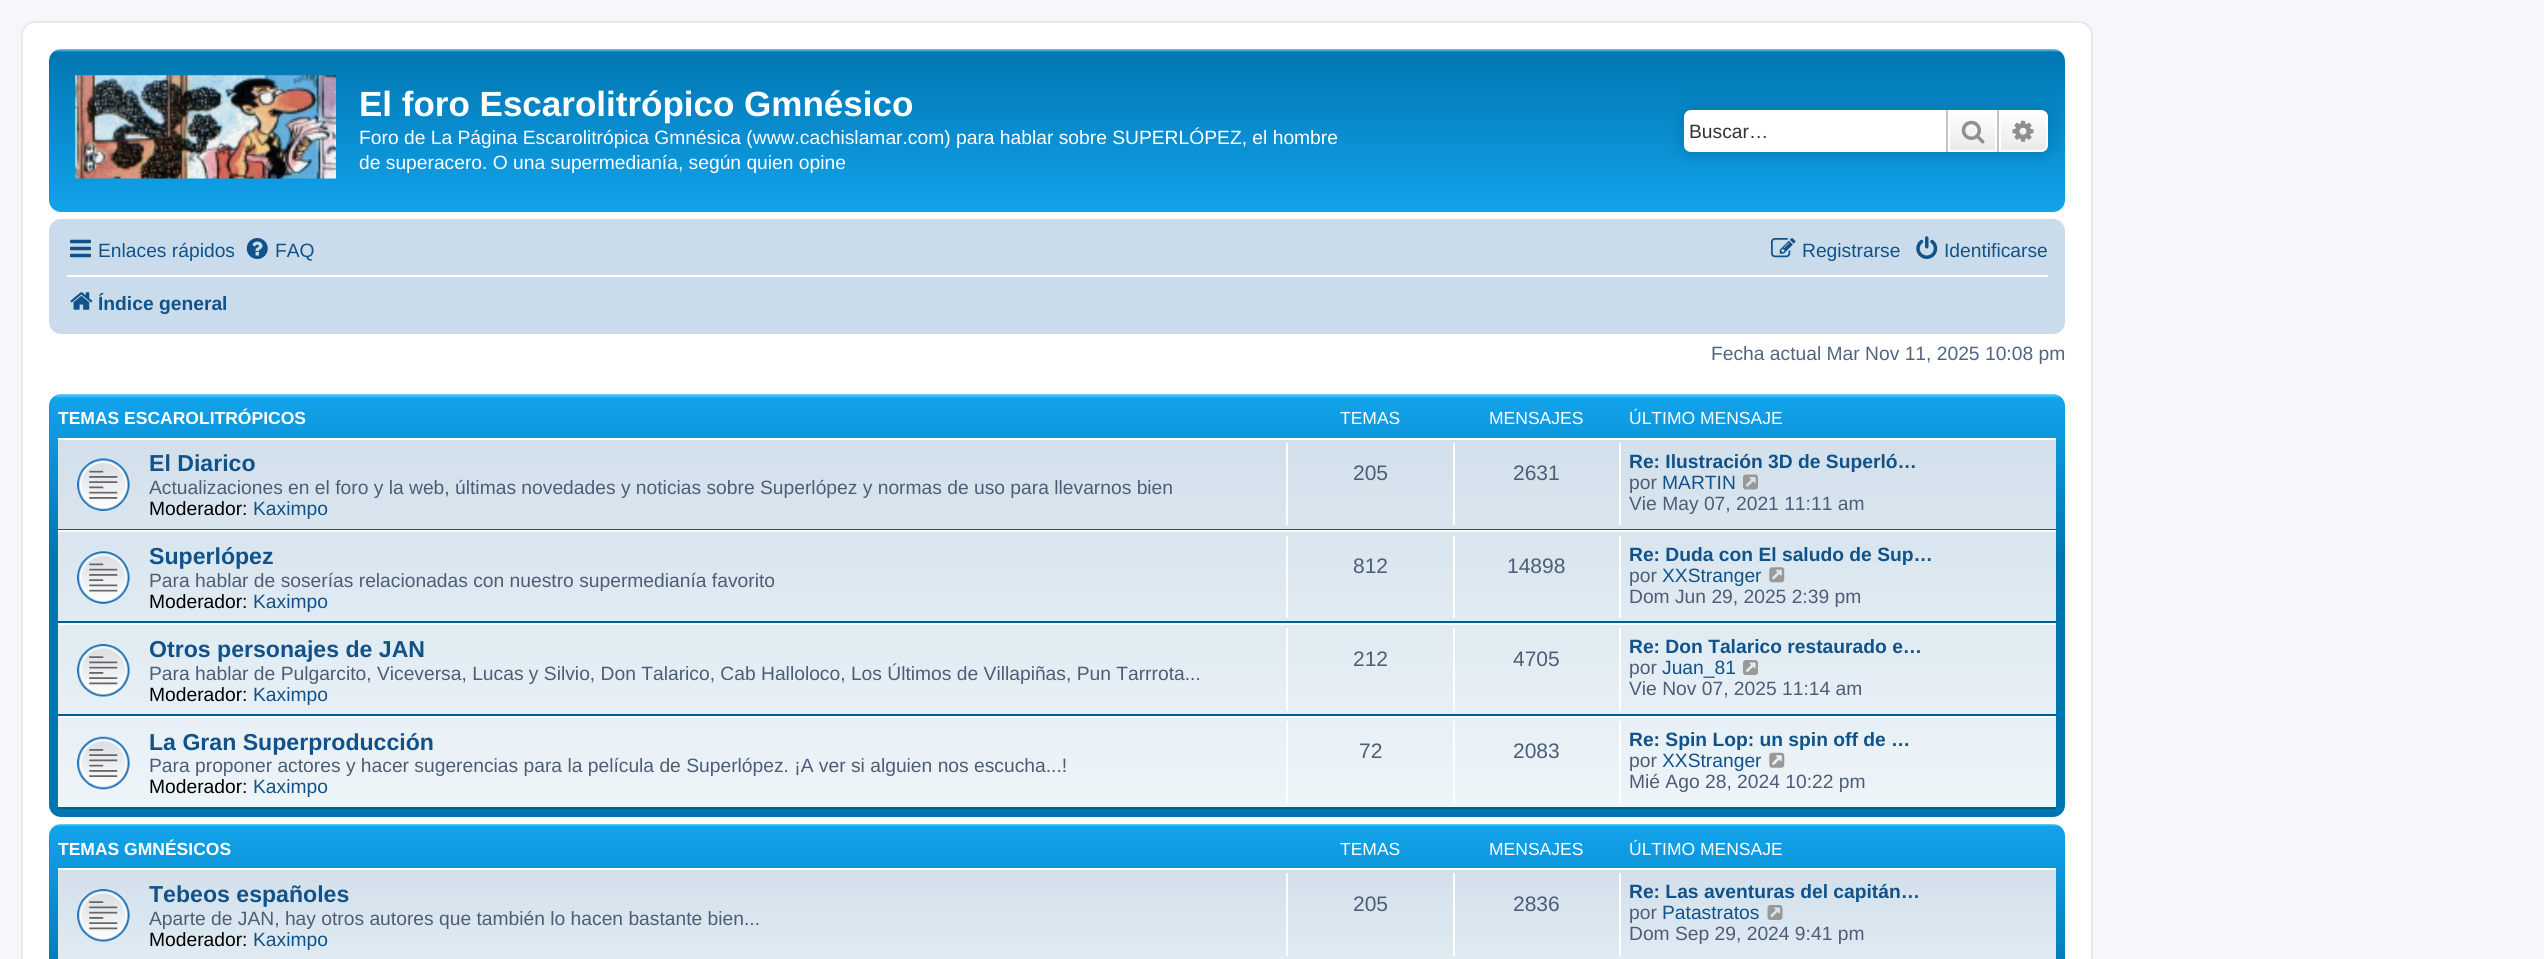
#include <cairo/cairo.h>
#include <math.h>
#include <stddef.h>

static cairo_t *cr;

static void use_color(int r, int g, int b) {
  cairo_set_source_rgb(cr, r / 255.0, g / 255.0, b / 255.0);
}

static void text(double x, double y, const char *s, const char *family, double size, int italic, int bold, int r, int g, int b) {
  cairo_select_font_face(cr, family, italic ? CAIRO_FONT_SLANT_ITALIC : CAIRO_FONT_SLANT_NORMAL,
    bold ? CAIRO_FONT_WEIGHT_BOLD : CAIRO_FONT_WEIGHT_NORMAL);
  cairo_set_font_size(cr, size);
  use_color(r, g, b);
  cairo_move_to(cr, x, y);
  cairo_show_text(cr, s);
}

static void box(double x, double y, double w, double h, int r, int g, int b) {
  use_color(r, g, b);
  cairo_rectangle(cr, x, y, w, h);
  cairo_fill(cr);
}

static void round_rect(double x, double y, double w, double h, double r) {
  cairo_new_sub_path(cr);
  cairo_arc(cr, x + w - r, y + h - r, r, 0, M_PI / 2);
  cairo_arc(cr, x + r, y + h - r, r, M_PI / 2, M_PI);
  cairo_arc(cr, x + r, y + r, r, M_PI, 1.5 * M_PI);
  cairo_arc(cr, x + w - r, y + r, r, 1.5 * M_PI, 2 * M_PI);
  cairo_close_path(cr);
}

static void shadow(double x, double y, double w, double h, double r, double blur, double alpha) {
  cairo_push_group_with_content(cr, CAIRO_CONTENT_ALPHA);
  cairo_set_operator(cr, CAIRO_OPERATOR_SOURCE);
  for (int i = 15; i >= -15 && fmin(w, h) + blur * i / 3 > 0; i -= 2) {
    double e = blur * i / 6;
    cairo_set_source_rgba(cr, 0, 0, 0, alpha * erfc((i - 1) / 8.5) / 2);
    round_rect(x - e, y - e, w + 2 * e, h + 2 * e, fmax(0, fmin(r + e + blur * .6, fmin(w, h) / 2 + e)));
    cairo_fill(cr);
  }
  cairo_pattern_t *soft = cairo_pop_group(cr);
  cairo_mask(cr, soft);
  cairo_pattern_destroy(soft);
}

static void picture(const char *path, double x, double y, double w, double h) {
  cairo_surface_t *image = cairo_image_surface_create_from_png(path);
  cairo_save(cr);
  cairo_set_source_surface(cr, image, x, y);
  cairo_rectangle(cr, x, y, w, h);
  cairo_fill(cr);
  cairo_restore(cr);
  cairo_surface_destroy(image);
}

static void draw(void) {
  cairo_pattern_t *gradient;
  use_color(245, 247, 250);
  cairo_paint(cr);
  use_color(255, 255, 255);
  round_rect(22, 22, 2070, 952, 13);
  cairo_fill_preserve(cr);
  use_color(230, 233, 237);
  cairo_stroke(cr);
  gradient = cairo_pattern_create_linear(1057, 49, 1057, 212);
  cairo_pattern_add_color_stop_rgba(gradient, 0, 0.416, 0.808, 1, 1);
  cairo_pattern_add_color_stop_rgba(gradient, 0.02, 0, 0.463, 0.694, 1);
  cairo_pattern_add_color_stop_rgba(gradient, 0.99, 0.071, 0.639, 0.922, 1);
  cairo_pattern_add_color_stop_rgba(gradient, 1, 0.071, 0.639, 0.922, 1);
  cairo_set_source(cr, gradient);
  cairo_pattern_destroy(gradient);
  round_rect(49, 49, 2016, 163, 12);
  cairo_fill(cr);
  picture("img_01.png", 75, 75, 261, 104);
  use_color(0, 117, 176);
  shadow(1684, 110, 364, 42, 7, 9, 1);
  use_color(255, 255, 255);
  cairo_new_path(cr);
  cairo_move_to(cr, 1691, 110);
  cairo_line_to(cr, 1946, 110);
  cairo_line_to(cr, 1946, 152);
  cairo_line_to(cr, 1691, 152);
  cairo_curve_to(cr, 1687, 152, 1684, 149, 1684, 145);
  cairo_line_to(cr, 1684, 117);
  cairo_curve_to(cr, 1684, 113, 1687, 110, 1691, 110);
  cairo_close_path(cr);
  cairo_fill(cr);
  gradient = cairo_pattern_create_linear(1972, 110, 1972, 152);
  cairo_pattern_add_color_stop_rgba(gradient, 0, 1, 1, 1, 1);
  cairo_pattern_add_color_stop_rgba(gradient, 1, 0.914, 0.914, 0.914, 1);
  cairo_set_source(cr, gradient);
  cairo_pattern_destroy(gradient);
  cairo_rectangle(cr, 1950, 112, 45, 38);
  cairo_fill(cr);
  cairo_rectangle(cr, 1949, 111, 47, 40);
  use_color(255, 255, 255);
  cairo_stroke(cr);
  box(1997, 110, 2, 42, 199, 195, 191);
  box(1946, 110, 2, 42, 199, 195, 191);
  picture("img_02.png", 1961, 120, 24, 24);
  gradient = cairo_pattern_create_linear(2023, 110, 2023, 152);
  cairo_pattern_add_color_stop_rgba(gradient, 0, 1, 1, 1, 1);
  cairo_pattern_add_color_stop_rgba(gradient, 1, 0.914, 0.914, 0.914, 1);
  cairo_set_source(cr, gradient);
  cairo_pattern_destroy(gradient);
  cairo_new_path(cr);
  cairo_move_to(cr, 2000, 111);
  cairo_line_to(cr, 2041, 111);
  cairo_curve_to(cr, 2044.5, 111, 2047, 113.5, 2047, 117);
  cairo_line_to(cr, 2047, 145);
  cairo_curve_to(cr, 2047, 148.5, 2044.5, 151, 2041, 151);
  cairo_line_to(cr, 2000, 151);
  cairo_close_path(cr);
  cairo_fill_preserve(cr);
  use_color(255, 255, 255);
  cairo_stroke(cr);
  picture("img_03.png", 2012, 120, 22, 22);
  use_color(202, 220, 235);
  round_rect(49, 219, 2016, 115, 12);
  cairo_fill(cr);
  picture("img_04.png", 70, 239, 21, 19);
  picture("img_05.png", 246, 238, 22, 21);
  picture("img_06.png", 1771, 238, 25, 20);
  picture("img_07.png", 1916, 236, 22, 23);
  box(67, 275, 1981, 2, 255, 255, 255);
  picture("img_08.png", 70, 292, 23, 18);
  gradient = cairo_pattern_create_linear(1057, 394, 1057, 817);
  cairo_pattern_add_color_stop_rgba(gradient, 0, 0.416, 0.808, 1, 1);
  cairo_pattern_add_color_stop_rgba(gradient, 0.01, 0.071, 0.639, 0.922, 1);
  cairo_pattern_add_color_stop_rgba(gradient, 0.38, 0, 0.463, 0.694, 1);
  cairo_pattern_add_color_stop_rgba(gradient, 1, 0, 0.463, 0.694, 1);
  cairo_set_source(cr, gradient);
  cairo_pattern_destroy(gradient);
  round_rect(49, 394, 2016, 423, 12);
  cairo_fill(cr);
  gradient = cairo_pattern_create_linear(1057, 437, 1057, 809);
  cairo_pattern_add_color_stop_rgba(gradient, 0, 0.824, 0.878, 0.922, 1);
  cairo_pattern_add_color_stop_rgba(gradient, 1, 0.933, 0.961, 0.976, 1);
  cairo_set_source(cr, gradient);
  cairo_pattern_destroy(gradient);
  cairo_rectangle(cr, 58, 440, 1998, 367);
  cairo_fill(cr);
  box(58, 438, 1998, 2, 255, 255, 255);
  box(58, 529, 1998, 1, 0, 96, 143);
  picture("img_09.png", 77, 458, 53, 53);
  box(1286, 443, 2, 82, 255, 255, 255);
  box(1453, 443, 2, 82, 255, 255, 255);
  box(1619, 443, 2, 82, 255, 255, 255);
  picture("img_10.png", 1743, 474, 15, 16);
  box(58, 530, 1998, 2, 255, 255, 255);
  box(58, 621, 1998, 2, 0, 96, 143);
  picture("img_11.png", 77, 551, 53, 53);
  box(1286, 536, 2, 82, 255, 255, 255);
  box(1453, 536, 2, 82, 255, 255, 255);
  box(1619, 536, 2, 82, 255, 255, 255);
  picture("img_12.png", 1769, 567, 16, 16);
  box(58, 623, 1998, 2, 255, 255, 255);
  box(58, 714, 1998, 2, 0, 96, 143);
  picture("img_13.png", 77, 644, 53, 53);
  box(1286, 628, 2, 83, 255, 255, 255);
  box(1453, 628, 2, 83, 255, 255, 255);
  box(1619, 628, 2, 83, 255, 255, 255);
  picture("img_14.png", 1743, 660, 15, 15);
  box(58, 716, 1998, 2, 255, 255, 255);
  box(58, 807, 1998, 2, 0, 96, 143);
  picture("img_15.png", 77, 736, 53, 54);
  box(1286, 721, 2, 82, 255, 255, 255);
  box(1453, 721, 2, 82, 255, 255, 255);
  box(1619, 721, 2, 82, 255, 255, 255);
  picture("img_16.png", 1769, 752, 16, 16);
  gradient = cairo_pattern_create_linear(1057, 824, 1057, 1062);
  cairo_pattern_add_color_stop_rgba(gradient, 0, 0.416, 0.808, 1, 1);
  cairo_pattern_add_color_stop_rgba(gradient, 0.01, 0.071, 0.639, 0.922, 1);
  cairo_pattern_add_color_stop_rgba(gradient, 0.68, 0, 0.463, 0.694, 1);
  cairo_pattern_add_color_stop_rgba(gradient, 1, 0, 0.463, 0.694, 1);
  cairo_set_source(cr, gradient);
  cairo_pattern_destroy(gradient);
  round_rect(49, 824, 2016, 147, 12);
  cairo_fill(cr);
  gradient = cairo_pattern_create_linear(1057, 868, 1057, 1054);
  cairo_pattern_add_color_stop_rgba(gradient, 0, 0.824, 0.878, 0.922, 1);
  cairo_pattern_add_color_stop_rgba(gradient, 1, 0.933, 0.961, 0.976, 1);
  cairo_set_source(cr, gradient);
  cairo_pattern_destroy(gradient);
  cairo_rectangle(cr, 58, 870, 1998, 89);
  cairo_fill(cr);
  box(58, 868, 1998, 2, 255, 255, 255);
  picture("img_17.png", 77, 889, 53, 53);
  box(1286, 873, 2, 83, 255, 255, 255);
  box(1453, 873, 2, 83, 255, 255, 255);
  box(1619, 873, 2, 83, 255, 255, 255);
  picture("img_18.png", 1767, 905, 16, 15);
  text(359, 116, "El foro Escarolitrópico Gmnésico", "Liberation Sans", 35, 0, 1, 255, 255, 255);
  text(359, 144, "Foro de La Página Escarolitrópica Gmnésica (www.cachislamar.com) para hablar sobre SUPERLÓPEZ, el hombre", "Liberation Sans", 19.25, 0, 0, 255, 255, 255);
  text(359, 169, "de superacero. O una supermedianía, según quien opine", "Liberation Sans", 19.25, 0, 0, 255, 255, 255);
  text(1689, 138, "Buscar…", "Liberation Sans", 19.25, 0, 0, 51, 51, 51);
  text(98, 257, "Enlaces rápidos", "Liberation Sans", 19.25, 0, 0, 16, 82, 137);
  text(275, 257, "FAQ", "Liberation Sans", 19.25, 0, 0, 16, 82, 137);
  text(1802, 257, "Registrarse", "Liberation Sans", 19.25, 0, 0, 16, 82, 137);
  text(1944, 257, "Identificarse", "Liberation Sans", 19.25, 0, 0, 16, 82, 137);
  text(98, 310, "Índice general", "Liberation Sans", 19.25, 0, 1, 16, 82, 137);
  text(1711, 360, "Fecha actual Mar Nov 11, 2025 10:08 pm", "Liberation Sans", 19.25, 0, 0, 83, 100, 130);
  text(58, 424, "TEMAS ESCAROLITRÓPICOS", "Liberation Sans", 17.5, 0, 1, 255, 255, 255);
  text(1340, 424, "TEMAS", "Liberation Sans", 17.5, 0, 0, 255, 255, 255);
  text(1489, 424, "MENSAJES", "Liberation Sans", 17.5, 0, 0, 255, 255, 255);
  text(1629, 424, "ÚLTIMO MENSAJE", "Liberation Sans", 17.5, 0, 0, 255, 255, 255);
  text(149, 471, "El Diarico", "Liberation Sans", 23.1, 0, 1, 16, 82, 137);
  text(149, 494, "Actualizaciones en el foro y la web, últimas novedades y noticias sobre Superlópez y normas de uso para llevarnos bien", "Liberation Sans", 19.25, 0, 0, 76, 93, 119);
  text(149, 515, "Moderador:", "Liberation Sans", 19.25, 0, 0, 0, 0, 0);
  text(253, 515, "Kaximpo", "Liberation Sans", 19.25, 0, 0, 16, 82, 137);
  text(1353, 480, "205", "Liberation Sans", 21, 0, 0, 76, 93, 119);
  text(1513, 480, "2631", "Liberation Sans", 21, 0, 0, 76, 93, 119);
  text(1629, 468, "Re: Ilustración 3D de Superló…", "Liberation Sans", 19.25, 0, 1, 16, 82, 137);
  text(1629, 489, "por", "Liberation Sans", 19.25, 0, 0, 76, 93, 119);
  text(1662, 489, "MARTIN", "Liberation Sans", 19.25, 0, 0, 16, 82, 137);
  text(1629, 510, "Vie May 07, 2021 11:11 am", "Liberation Sans", 19.25, 0, 0, 76, 93, 119);
  text(149, 564, "Superlópez", "Liberation Sans", 23.1, 0, 1, 16, 82, 137);
  text(149, 587, "Para hablar de soserías relacionadas con nuestro supermedianía favorito", "Liberation Sans", 19.25, 0, 0, 76, 93, 119);
  text(149, 608, "Moderador:", "Liberation Sans", 19.25, 0, 0, 0, 0, 0);
  text(253, 608, "Kaximpo", "Liberation Sans", 19.25, 0, 0, 16, 82, 137);
  text(1353, 573, "812", "Liberation Sans", 21, 0, 0, 76, 93, 119);
  text(1507, 573, "14898", "Liberation Sans", 21, 0, 0, 76, 93, 119);
  text(1629, 561, "Re: Duda con El saludo de Sup…", "Liberation Sans", 19.25, 0, 1, 16, 82, 137);
  text(1629, 582, "por", "Liberation Sans", 19.25, 0, 0, 76, 93, 119);
  text(1662, 582, "XXStranger", "Liberation Sans", 19.25, 0, 0, 16, 82, 137);
  text(1629, 603, "Dom Jun 29, 2025 2:39 pm", "Liberation Sans", 19.25, 0, 0, 76, 93, 119);
  text(149, 657, "Otros personajes de JAN", "Liberation Sans", 23.1, 0, 1, 16, 82, 137);
  text(149, 680, "Para hablar de Pulgarcito, Viceversa, Lucas y Silvio, Don Talarico, Cab Halloloco, Los Últimos de Villapiñas, Pun Tarrrota...", "Liberation Sans", 19.25, 0, 0, 76, 93, 119);
  text(149, 701, "Moderador:", "Liberation Sans", 19.25, 0, 0, 0, 0, 0);
  text(253, 701, "Kaximpo", "Liberation Sans", 19.25, 0, 0, 16, 82, 137);
  text(1353, 666, "212", "Liberation Sans", 21, 0, 0, 76, 93, 119);
  text(1513, 666, "4705", "Liberation Sans", 21, 0, 0, 76, 93, 119);
  text(1629, 653, "Re: Don Talarico restaurado e…", "Liberation Sans", 19.25, 0, 1, 16, 82, 137);
  text(1629, 674, "por", "Liberation Sans", 19.25, 0, 0, 76, 93, 119);
  text(1662, 674, "Juan_81", "Liberation Sans", 19.25, 0, 0, 16, 82, 137);
  text(1629, 695, "Vie Nov 07, 2025 11:14 am", "Liberation Sans", 19.25, 0, 0, 76, 93, 119);
  text(149, 750, "La Gran Superproducción", "Liberation Sans", 23.1, 0, 1, 16, 82, 137);
  text(149, 772, "Para proponer actores y hacer sugerencias para la película de Superlópez. ¡A ver si alguien nos escucha...!", "Liberation Sans", 19.25, 0, 0, 76, 93, 119);
  text(149, 793, "Moderador:", "Liberation Sans", 19.25, 0, 0, 0, 0, 0);
  text(253, 793, "Kaximpo", "Liberation Sans", 19.25, 0, 0, 16, 82, 137);
  text(1359, 758, "72", "Liberation Sans", 21, 0, 0, 76, 93, 119);
  text(1513, 758, "2083", "Liberation Sans", 21, 0, 0, 76, 93, 119);
  text(1629, 746, "Re: Spin Lop: un spin off de …", "Liberation Sans", 19.25, 0, 1, 16, 82, 137);
  text(1629, 767, "por", "Liberation Sans", 19.25, 0, 0, 76, 93, 119);
  text(1662, 767, "XXStranger", "Liberation Sans", 19.25, 0, 0, 16, 82, 137);
  text(1629, 788, "Mié Ago 28, 2024 10:22 pm", "Liberation Sans", 19.25, 0, 0, 76, 93, 119);
  text(58, 855, "TEMAS GMNÉSICOS", "Liberation Sans", 17.5, 0, 1, 255, 255, 255);
  text(1340, 855, "TEMAS", "Liberation Sans", 17.5, 0, 0, 255, 255, 255);
  text(1489, 855, "MENSAJES", "Liberation Sans", 17.5, 0, 0, 255, 255, 255);
  text(1629, 855, "ÚLTIMO MENSAJE", "Liberation Sans", 17.5, 0, 0, 255, 255, 255);
  text(149, 902, "Tebeos españoles", "Liberation Sans", 23.1, 0, 1, 16, 82, 137);
  text(149, 925, "Aparte de JAN, hay otros autores que también lo hacen bastante bien...", "Liberation Sans", 19.25, 0, 0, 76, 93, 119);
  text(149, 946, "Moderador:", "Liberation Sans", 19.25, 0, 0, 0, 0, 0);
  text(253, 946, "Kaximpo", "Liberation Sans", 19.25, 0, 0, 16, 82, 137);
  text(1353, 911, "205", "Liberation Sans", 21, 0, 0, 76, 93, 119);
  text(1513, 911, "2836", "Liberation Sans", 21, 0, 0, 76, 93, 119);
  text(1629, 898, "Re: Las aventuras del capitán…", "Liberation Sans", 19.25, 0, 1, 16, 82, 137);
  text(1629, 919, "por", "Liberation Sans", 19.25, 0, 0, 76, 93, 119);
  text(1662, 919, "Patastratos", "Liberation Sans", 19.25, 0, 0, 16, 82, 137);
  text(1629, 940, "Dom Sep 29, 2024 9:41 pm", "Liberation Sans", 19.25, 0, 0, 76, 93, 119);
}

int main(void) {
  cairo_surface_t *surface = cairo_image_surface_create(CAIRO_FORMAT_RGB24, 2544, 959);
  cr = cairo_create(surface);
  cairo_font_options_t *options = cairo_font_options_create();
  cairo_font_options_set_hint_metrics(options, CAIRO_HINT_METRICS_OFF);
  cairo_font_options_set_hint_style(options, CAIRO_HINT_STYLE_NONE);
  cairo_set_font_options(cr, options);
  cairo_set_miter_limit(cr, 4);
  draw();
  cairo_surface_write_to_png(surface, "out.png");
  cairo_font_options_destroy(options);
  cairo_destroy(cr);
  cairo_surface_destroy(surface);
  return 0;
}
